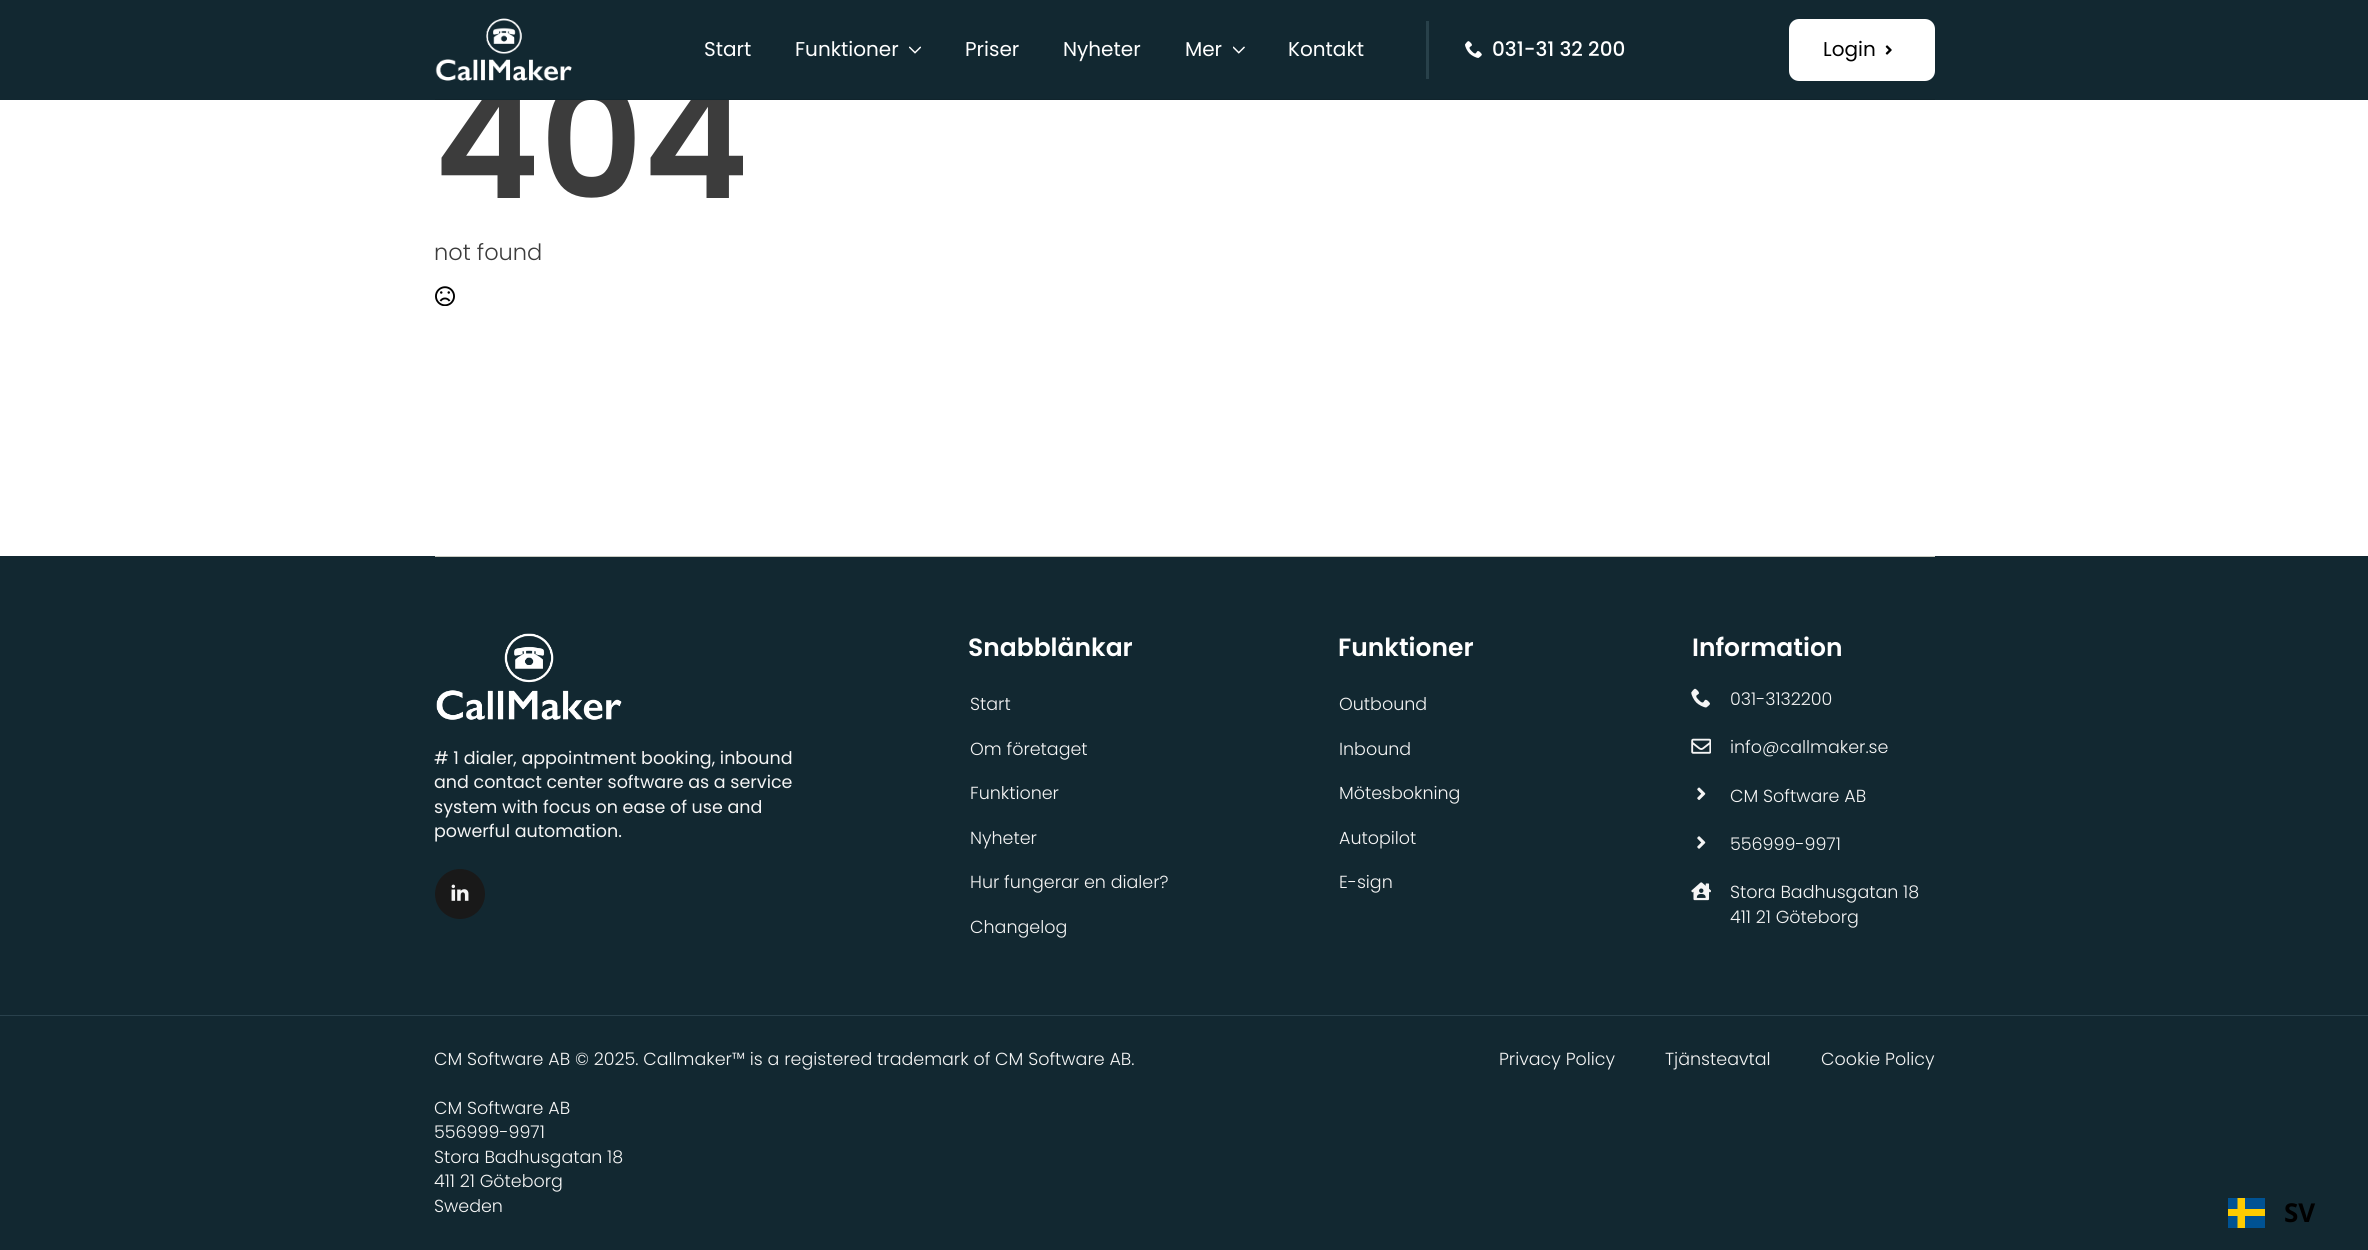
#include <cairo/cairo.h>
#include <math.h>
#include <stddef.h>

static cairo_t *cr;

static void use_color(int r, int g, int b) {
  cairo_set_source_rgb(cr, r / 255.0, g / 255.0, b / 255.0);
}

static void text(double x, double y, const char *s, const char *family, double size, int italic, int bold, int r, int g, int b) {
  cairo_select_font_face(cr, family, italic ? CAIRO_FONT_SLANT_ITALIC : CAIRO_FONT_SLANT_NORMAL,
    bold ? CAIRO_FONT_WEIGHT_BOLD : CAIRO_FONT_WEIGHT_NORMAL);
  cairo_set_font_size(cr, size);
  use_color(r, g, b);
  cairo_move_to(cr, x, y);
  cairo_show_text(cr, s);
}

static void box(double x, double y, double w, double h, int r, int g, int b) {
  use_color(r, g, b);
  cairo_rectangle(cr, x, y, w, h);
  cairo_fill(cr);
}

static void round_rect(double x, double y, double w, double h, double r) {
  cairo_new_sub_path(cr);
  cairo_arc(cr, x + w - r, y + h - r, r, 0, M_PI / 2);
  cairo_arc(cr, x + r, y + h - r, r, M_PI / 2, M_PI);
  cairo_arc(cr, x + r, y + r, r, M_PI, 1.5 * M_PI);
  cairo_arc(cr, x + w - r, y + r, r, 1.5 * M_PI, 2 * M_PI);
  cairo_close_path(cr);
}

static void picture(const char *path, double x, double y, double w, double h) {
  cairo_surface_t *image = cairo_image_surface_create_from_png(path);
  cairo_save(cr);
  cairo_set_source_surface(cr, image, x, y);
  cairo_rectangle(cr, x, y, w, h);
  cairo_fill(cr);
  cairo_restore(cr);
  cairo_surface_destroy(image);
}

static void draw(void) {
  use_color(255, 255, 255);
  cairo_paint(cr);
  picture("img_06.png", 435, 286, 20, 20);
  box(0, 556, 2368, 459, 18, 40, 49);
  box(435, 556, 1500, 1, 199, 202, 193);
  picture("img_07.png", 436, 633, 186, 87);
  use_color(25, 25, 25);
  cairo_arc(cr, 460, 894, 25, 0, 2 * M_PI);
  cairo_fill(cr);
  picture("img_08.png", 451, 884, 18, 17);
  picture("img_09.png", 1691, 688, 19, 20);
  picture("img_10.png", 1691, 738, 20, 16);
  picture("img_11.png", 1697, 787, 9, 13);
  picture("img_12.png", 1697, 836, 9, 13);
  picture("img_13.png", 1691, 882, 20, 19);
  box(0, 1016, 2368, 234, 18, 40, 49);
  box(0, 1015, 2368, 1, 41, 65, 76);
  box(2228, 1198, 37, 30, 0, 82, 147);
  cairo_save(cr);
  cairo_rectangle(cr, 2228, 1198, 37, 30);
  cairo_clip(cr);
  use_color(254, 203, 0);
  cairo_new_path(cr);
  cairo_move_to(cr, 2237.5, 1194);
  cairo_line_to(cr, 2237.5, 1209);
  cairo_line_to(cr, 2227.5, 1209);
  cairo_line_to(cr, 2227.5, 1216);
  cairo_line_to(cr, 2237.5, 1216);
  cairo_line_to(cr, 2237.5, 1231);
  cairo_line_to(cr, 2245, 1231);
  cairo_line_to(cr, 2245, 1216);
  cairo_line_to(cr, 2265, 1216);
  cairo_line_to(cr, 2265, 1209);
  cairo_line_to(cr, 2245, 1209);
  cairo_line_to(cr, 2245, 1194);
  cairo_close_path(cr);
  cairo_fill(cr);
  cairo_restore(cr);
  text(434, 198, "404", "Poppins SemiBold", 160, 0, 0, 60, 60, 60);
  box(0, 0, 2368, 100, 18, 40, 49);
  text(1288, 56, "Kontakt", "Poppins", 20, 0, 0, 255, 255, 255);
  picture("img_03.png", 1233, 46, 12, 8);
  text(1185, 56, "Mer", "Poppins", 20, 0, 0, 255, 255, 255);
  text(1063, 56, "Nyheter", "Poppins", 20, 0, 0, 255, 255, 255);
  text(965, 56, "Priser", "Poppins", 20, 0, 0, 255, 255, 255);
  picture("img_02.png", 909, 46, 12, 8);
  text(795, 56, "Funktioner", "Poppins", 20, 0, 0, 255, 255, 255);
  text(704, 56, "Start", "Poppins", 20, 0, 0, 255, 255, 255);
  round_rect(1789, 19, 146, 62, 10);
  cairo_fill(cr);
  picture("img_05.png", 1885, 45, 7, 10);
  text(1823, 56, "Login", "Poppins", 20, 0, 0, 0, 0, 0);
  picture("img_04.png", 1465, 41, 17, 17);
  text(1492, 56, "031-31 32 200", "Poppins Medium", 20, 0, 0, 255, 255, 255);
  box(1426, 21, 3, 58, 40, 65, 74);
  picture("img_01.png", 435, 18, 137, 63);
  box(435, 99, 1500, 1, 16, 36, 44);
  text(434, 260, "not found", "Poppins Light", 22.5, 0, 0, 60, 60, 60);
  text(434, 764, "# 1 dialer, appointment booking, inbound", "Poppins", 17.5, 0, 0, 245, 245, 245);
  text(434, 788, "and contact center software as a service", "Poppins", 17.5, 0, 0, 245, 245, 245);
  text(434, 813, "system with focus on ease of use and", "Poppins", 17.5, 0, 0, 245, 245, 245);
  text(434, 837, "powerful automation.", "Poppins", 17.5, 0, 0, 245, 245, 245);
  text(968, 656, "Snabblänkar", "Poppins SemiBold", 25, 0, 0, 255, 255, 255);
  text(970, 710, "Start", "Poppins Light", 17.5, 0, 0, 245, 245, 245);
  text(970, 755, "Om företaget", "Poppins Light", 17.5, 0, 0, 245, 245, 245);
  text(970, 799, "Funktioner", "Poppins Light", 17.5, 0, 0, 245, 245, 245);
  text(970, 844, "Nyheter", "Poppins Light", 17.5, 0, 0, 245, 245, 245);
  text(970, 888, "Hur fungerar en dialer?", "Poppins Light", 17.5, 0, 0, 245, 245, 245);
  text(970, 933, "Changelog", "Poppins Light", 17.5, 0, 0, 245, 245, 245);
  text(1338, 656, "Funktioner", "Poppins SemiBold", 25, 0, 0, 255, 255, 255);
  text(1339, 710, "Outbound", "Poppins Light", 17.5, 0, 0, 245, 245, 245);
  text(1339, 755, "Inbound", "Poppins Light", 17.5, 0, 0, 245, 245, 245);
  text(1339, 799, "Mötesbokning", "Poppins Light", 17.5, 0, 0, 245, 245, 245);
  text(1339, 844, "Autopilot", "Poppins Light", 17.5, 0, 0, 245, 245, 245);
  text(1339, 888, "E-sign", "Poppins Light", 17.5, 0, 0, 245, 245, 245);
  text(1692, 656, "Information", "Poppins SemiBold", 25, 0, 0, 255, 255, 255);
  text(1730, 705, "031-3132200", "Poppins Light", 17.5, 0, 0, 245, 245, 245);
  text(1730, 753, "info@callmaker.se", "Poppins Light", 17.5, 0, 0, 245, 245, 245);
  text(1730, 802, "CM Software AB", "Poppins Light", 17.5, 0, 0, 245, 245, 245);
  text(1730, 850, "556999-9971", "Poppins Light", 17.5, 0, 0, 245, 245, 245);
  text(1730, 898, "Stora Badhusgatan 18", "Poppins Light", 17.5, 0, 0, 245, 245, 245);
  text(1730, 923, "411 21 Göteborg", "Poppins Light", 17.5, 0, 0, 245, 245, 245);
  text(434, 1065, "CM Software AB © 2025. Callmaker™ is a registered trademark of CM Software AB.", "Poppins Light", 17.5, 0, 0, 245, 245, 245);
  text(434, 1114, "CM Software AB", "Poppins Light", 17.5, 0, 0, 245, 245, 245);
  text(434, 1138, "556999-9971", "Poppins Light", 17.5, 0, 0, 245, 245, 245);
  text(434, 1163, "Stora Badhusgatan 18", "Poppins Light", 17.5, 0, 0, 245, 245, 245);
  text(434, 1187, "411 21 Göteborg", "Poppins Light", 17.5, 0, 0, 245, 245, 245);
  text(434, 1212, "Sweden", "Poppins Light", 17.5, 0, 0, 245, 245, 245);
  text(1499, 1065, "Privacy Policy", "Poppins Light", 17.5, 0, 0, 245, 245, 245);
  text(1665, 1065, "Tjänsteavtal", "Poppins Light", 17.5, 0, 0, 245, 245, 245);
  text(1821, 1065, "Cookie Policy", "Poppins Light", 17.5, 0, 0, 245, 245, 245);
  text(2284, 1222, "SV", "Noto Sans", 26, 0, 1, 0, 0, 0);
}

int main(void) {
  cairo_surface_t *surface = cairo_image_surface_create(CAIRO_FORMAT_RGB24, 2368, 1250);
  cr = cairo_create(surface);
  cairo_font_options_t *options = cairo_font_options_create();
  cairo_font_options_set_hint_metrics(options, CAIRO_HINT_METRICS_OFF);
  cairo_font_options_set_hint_style(options, CAIRO_HINT_STYLE_NONE);
  cairo_set_font_options(cr, options);
  cairo_set_miter_limit(cr, 4);
  draw();
  cairo_surface_write_to_png(surface, "out.png");
  cairo_font_options_destroy(options);
  cairo_destroy(cr);
  cairo_surface_destroy(surface);
  return 0;
}
